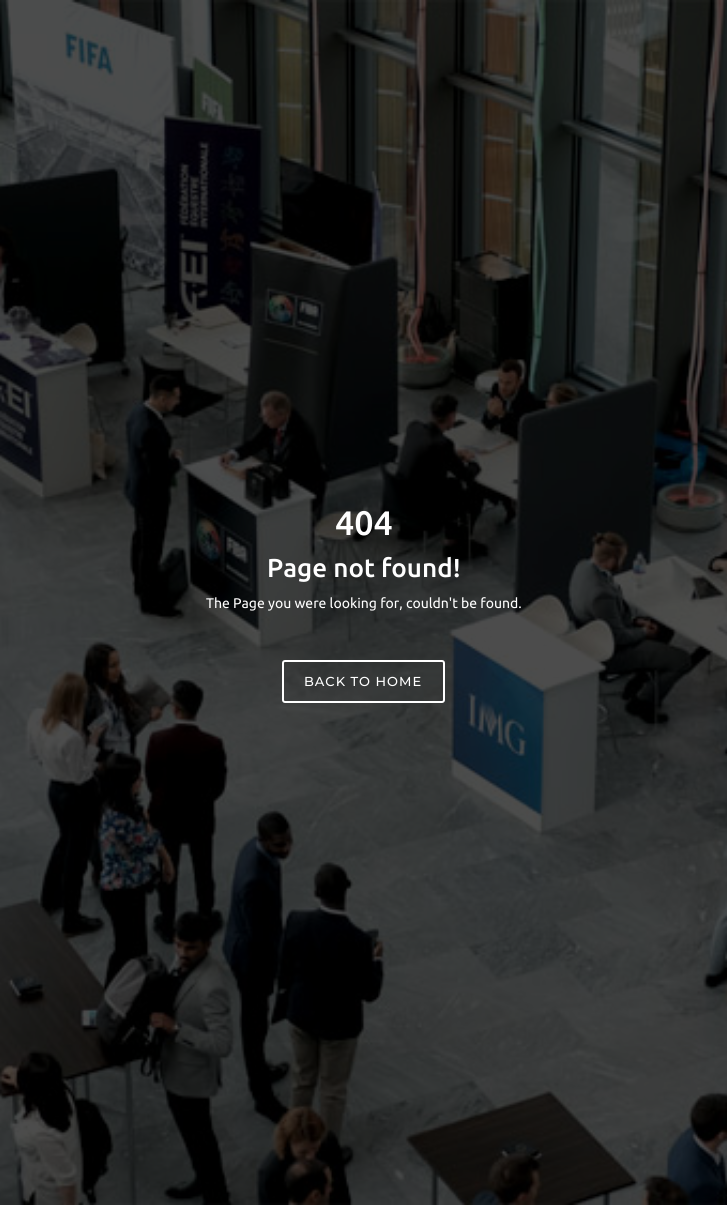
#include <cairo/cairo.h>
#include <math.h>
#include <stddef.h>

static cairo_t *cr;

static void use_color(int r, int g, int b) {
  cairo_set_source_rgb(cr, r / 255.0, g / 255.0, b / 255.0);
}

static void text(double x, double y, const char *s, const char *family, double size, int italic, int bold, int r, int g, int b) {
  cairo_select_font_face(cr, family, italic ? CAIRO_FONT_SLANT_ITALIC : CAIRO_FONT_SLANT_NORMAL,
    bold ? CAIRO_FONT_WEIGHT_BOLD : CAIRO_FONT_WEIGHT_NORMAL);
  cairo_set_font_size(cr, size);
  use_color(r, g, b);
  cairo_move_to(cr, x, y);
  cairo_show_text(cr, s);
}

static void spaced_text(double x, double y, const char *s, double letter, double word) {
  cairo_move_to(cr, x, y);
  while (*s) {
    char ch[5] = {0};
    int n = 0;
    do ch[n++] = *s++; while ((*s & 0xC0) == 0x80);
    cairo_show_text(cr, ch);
    cairo_rel_move_to(cr, letter + word * (*ch == ' '), 0);
  }
}

static void round_rect(double x, double y, double w, double h, double r) {
  cairo_new_sub_path(cr);
  cairo_arc(cr, x + w - r, y + h - r, r, 0, M_PI / 2);
  cairo_arc(cr, x + r, y + h - r, r, M_PI / 2, M_PI);
  cairo_arc(cr, x + r, y + r, r, M_PI, 1.5 * M_PI);
  cairo_arc(cr, x + w - r, y + r, r, 1.5 * M_PI, 2 * M_PI);
  cairo_close_path(cr);
}

static void picture(const char *path, double x, double y, double w, double h) {
  cairo_surface_t *image = cairo_image_surface_create_from_png(path);
  cairo_save(cr);
  cairo_set_source_surface(cr, image, x, y);
  cairo_rectangle(cr, x, y, w, h);
  cairo_fill(cr);
  cairo_restore(cr);
  cairo_surface_destroy(image);
}

static void draw(void) {
  use_color(255, 255, 255);
  cairo_paint(cr);
  picture("img_01.png", 0, 0, 727, 1205);
  round_rect(283, 661, 161, 41, 2);
  use_color(255, 255, 255);
  cairo_stroke(cr);
  text(335, 535, "404", "Ubuntu Medium", 34, 0, 0, 255, 255, 255);
  text(267, 577, "Page not found!", "Ubuntu Medium", 26, 0, 0, 255, 255, 255);
  text(206, 608, "The Page you were looking for, couldn't be found.", "Ubuntu", 14, 0, 0, 255, 255, 255);
  cairo_select_font_face(cr, "Montserrat Medium", CAIRO_FONT_SLANT_NORMAL, CAIRO_FONT_WEIGHT_NORMAL);
  cairo_set_font_size(cr, 13);
  spaced_text(304, 686, "BACK TO HOME", 1, 0);
}

int main(void) {
  cairo_surface_t *surface = cairo_image_surface_create(CAIRO_FORMAT_RGB24, 727, 1205);
  cr = cairo_create(surface);
  cairo_font_options_t *options = cairo_font_options_create();
  cairo_font_options_set_hint_metrics(options, CAIRO_HINT_METRICS_OFF);
  cairo_font_options_set_hint_style(options, CAIRO_HINT_STYLE_NONE);
  cairo_set_font_options(cr, options);
  cairo_set_miter_limit(cr, 4);
  draw();
  cairo_surface_write_to_png(surface, "out.png");
  cairo_font_options_destroy(options);
  cairo_destroy(cr);
  cairo_surface_destroy(surface);
  return 0;
}
